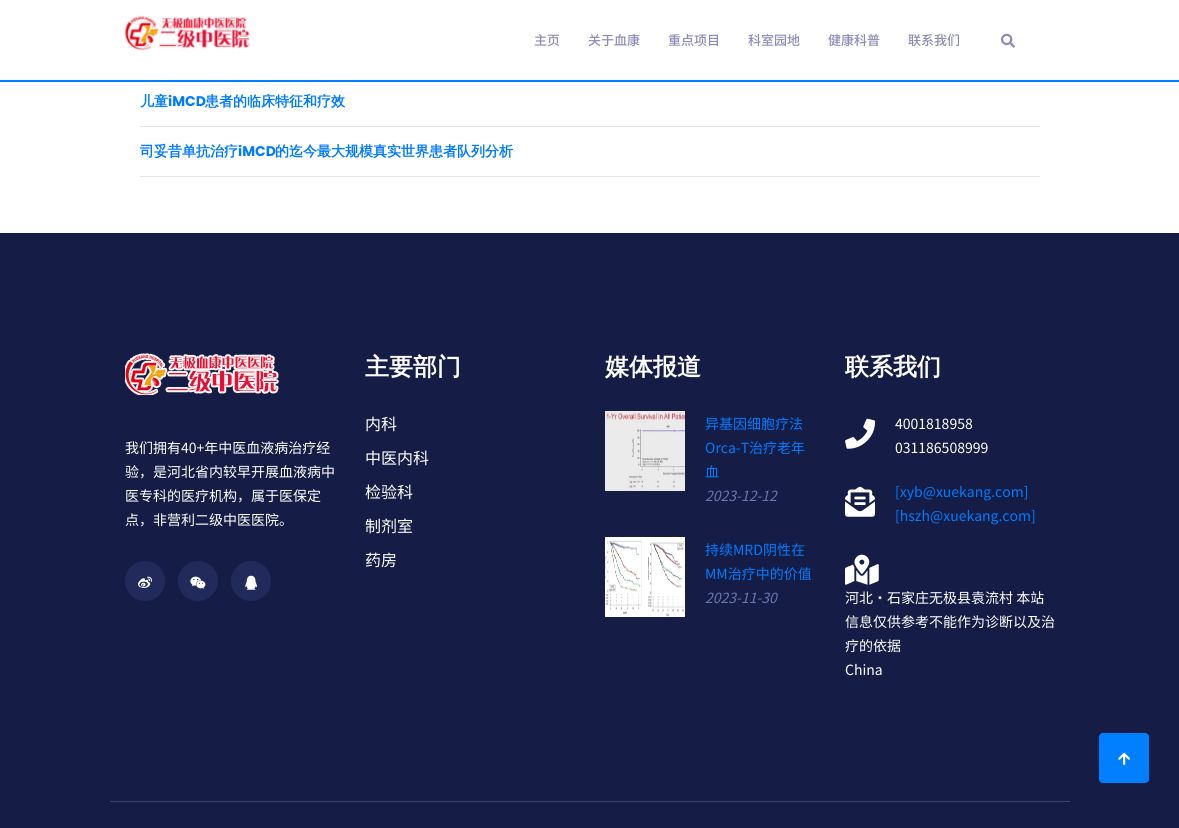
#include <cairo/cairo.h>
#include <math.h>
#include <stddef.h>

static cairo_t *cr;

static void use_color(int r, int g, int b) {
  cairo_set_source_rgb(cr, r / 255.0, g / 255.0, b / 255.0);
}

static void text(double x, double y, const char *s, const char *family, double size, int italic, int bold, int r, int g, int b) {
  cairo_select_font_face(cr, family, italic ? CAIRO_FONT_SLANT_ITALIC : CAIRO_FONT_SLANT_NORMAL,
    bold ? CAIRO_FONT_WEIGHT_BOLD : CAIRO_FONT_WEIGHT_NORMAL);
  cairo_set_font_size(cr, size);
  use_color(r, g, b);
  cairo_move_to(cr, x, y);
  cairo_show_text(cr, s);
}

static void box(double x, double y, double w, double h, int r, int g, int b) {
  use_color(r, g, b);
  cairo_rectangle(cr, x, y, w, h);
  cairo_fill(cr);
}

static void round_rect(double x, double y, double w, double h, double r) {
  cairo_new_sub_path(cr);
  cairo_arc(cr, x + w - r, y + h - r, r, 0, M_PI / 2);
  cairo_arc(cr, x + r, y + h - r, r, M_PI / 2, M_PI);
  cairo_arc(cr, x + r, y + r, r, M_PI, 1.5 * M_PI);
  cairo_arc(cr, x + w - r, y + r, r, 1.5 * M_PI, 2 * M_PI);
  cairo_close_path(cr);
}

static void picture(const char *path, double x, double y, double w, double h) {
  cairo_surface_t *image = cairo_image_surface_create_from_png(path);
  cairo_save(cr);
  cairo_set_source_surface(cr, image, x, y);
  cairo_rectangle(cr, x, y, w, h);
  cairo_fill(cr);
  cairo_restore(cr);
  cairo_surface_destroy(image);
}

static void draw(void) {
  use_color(255, 255, 255);
  cairo_paint(cr);
  box(0, 80, 1179, 2, 0, 128, 255);
  picture("img_01.png", 125, 15, 126, 35);
  picture("img_02.png", 1001, 33, 14, 15);
  box(140, 126, 900, 1, 230, 230, 230);
  box(140, 176, 900, 1, 230, 230, 230);
  box(0, 233, 1179, 595, 21, 29, 70);
  picture("img_03.png", 125, 353, 154, 42);
  use_color(33, 42, 90);
  cairo_arc(cr, 145, 581, 20, 0, 2 * M_PI);
  cairo_fill(cr);
  picture("img_04.png", 138, 576, 14, 12);
  cairo_arc(cr, 198, 581, 20, 0, 2 * M_PI);
  cairo_fill(cr);
  picture("img_05.png", 190, 576, 16, 13);
  cairo_arc(cr, 251, 581, 20, 0, 2 * M_PI);
  cairo_fill(cr);
  picture("img_06.png", 245, 575, 12, 15);
  picture("img_07.png", 605, 411, 80, 80);
  picture("img_08.png", 605, 537, 80, 80);
  picture("img_09.png", 845, 418, 31, 31);
  picture("img_10.png", 845, 486, 30, 31);
  picture("img_11.png", 845, 554, 34, 31);
  box(110, 801, 960, 1, 56, 65, 114);
  use_color(0, 128, 255);
  round_rect(1099, 733, 50, 50, 4);
  cairo_fill(cr);
  picture("img_12.png", 1118, 752, 12, 13);
  text(534, 45, "主页", "Noto Sans CJK SC Medium", 13, 0, 0, 143, 139, 184);
  text(588, 45, "关于血康", "Noto Sans CJK SC Medium", 13, 0, 0, 143, 139, 184);
  text(668, 45, "重点项目", "Noto Sans CJK SC Medium", 13, 0, 0, 143, 139, 184);
  text(748, 45, "科室园地", "Noto Sans CJK SC Medium", 13, 0, 0, 143, 139, 184);
  text(828, 45, "健康科普", "Noto Sans CJK SC Medium", 13, 0, 0, 143, 139, 184);
  text(908, 45, "联系我们", "Noto Sans CJK SC Medium", 13, 0, 0, 143, 139, 184);
  text(140, 106, "儿童", "WenQuanYi Zen Hei", 14, 0, 1, 0, 123, 255);
  text(168, 106, "iMCD", "Poppins", 14, 0, 1, 0, 123, 255);
  text(205, 106, "患者的临床特征和疗效", "WenQuanYi Zen Hei", 14, 0, 1, 0, 123, 255);
  text(140, 156, "司妥昔单抗治疗", "WenQuanYi Zen Hei", 14, 0, 1, 0, 123, 255);
  text(238, 156, "iMCD", "Poppins", 14, 0, 1, 0, 123, 255);
  text(275, 156, "的迄今最大规模真实世界患者队列分析", "WenQuanYi Zen Hei", 14, 0, 1, 0, 123, 255);
  text(125, 453, "我们拥有40+年中医血液病治疗经", "Noto Sans CJK SC", 14, 0, 0, 255, 255, 255);
  text(125, 477, "验，是河北省内较早开展血液病中", "Noto Sans CJK SC", 14, 0, 0, 255, 255, 255);
  text(125, 501, "医专科的医疗机构，属于医保定", "Noto Sans CJK SC", 14, 0, 0, 255, 255, 255);
  text(125, 525, "点，非营利二级中医医院。", "Noto Sans CJK SC", 14, 0, 0, 255, 255, 255);
  text(365, 375, "主要部门", "WenQuanYi Zen Hei", 24, 0, 1, 255, 255, 255);
  text(365, 430, "内科", "Noto Sans CJK SC", 16, 0, 0, 255, 255, 255);
  text(365, 464, "中医内科", "Noto Sans CJK SC", 16, 0, 0, 255, 255, 255);
  text(365, 498, "检验科", "Noto Sans CJK SC", 16, 0, 0, 255, 255, 255);
  text(365, 532, "制剂室", "Noto Sans CJK SC", 16, 0, 0, 255, 255, 255);
  text(365, 566, "药房", "Noto Sans CJK SC", 16, 0, 0, 255, 255, 255);
  text(605, 375, "媒体报道", "WenQuanYi Zen Hei", 24, 0, 1, 255, 255, 255);
  text(705, 429, "异基因细胞疗法", "Noto Sans CJK SC", 14, 0, 0, 0, 123, 255);
  text(705, 453, "Orca-T治疗老年", "Noto Sans CJK SC", 14, 0, 0, 0, 123, 255);
  text(705, 477, "血", "Noto Sans CJK SC", 14, 0, 0, 0, 123, 255);
  text(705, 501, "2023-12-12", "Noto Sans CJK SC", 14, 1, 0, 106, 117, 175);
  text(705, 555, "持续MRD阴性在", "Noto Sans CJK SC", 14, 0, 0, 0, 123, 255);
  text(705, 579, "MM治疗中的价值", "Noto Sans CJK SC", 14, 0, 0, 0, 123, 255);
  text(705, 603, "2023-11-30", "Noto Sans CJK SC", 14, 1, 0, 106, 117, 175);
  text(845, 375, "联系我们", "WenQuanYi Zen Hei", 24, 0, 1, 255, 255, 255);
  text(895, 429, "4001818958", "Noto Sans CJK SC", 14, 0, 0, 255, 255, 255);
  text(895, 453, "031186508999", "Noto Sans CJK SC", 14, 0, 0, 255, 255, 255);
  text(895, 497, "[xyb@xuekang.com]", "Noto Sans CJK SC", 14, 0, 0, 0, 123, 255);
  text(895, 521, "[hszh@xuekang.com]", "Noto Sans CJK SC", 14, 0, 0, 0, 123, 255);
  text(845, 603, "河北·石家庄无极县袁流村 本站", "Noto Sans CJK SC", 14, 0, 0, 255, 255, 255);
  text(845, 627, "信息仅供参考不能作为诊断以及治", "Noto Sans CJK SC", 14, 0, 0, 255, 255, 255);
  text(845, 651, "疗的依据", "Noto Sans CJK SC", 14, 0, 0, 255, 255, 255);
  text(845, 675, "China", "Noto Sans CJK SC", 14, 0, 0, 255, 255, 255);
}

int main(void) {
  cairo_surface_t *surface = cairo_image_surface_create(CAIRO_FORMAT_RGB24, 1179, 828);
  cr = cairo_create(surface);
  cairo_font_options_t *options = cairo_font_options_create();
  cairo_font_options_set_hint_metrics(options, CAIRO_HINT_METRICS_OFF);
  cairo_font_options_set_hint_style(options, CAIRO_HINT_STYLE_NONE);
  cairo_set_font_options(cr, options);
  cairo_set_miter_limit(cr, 4);
  draw();
  cairo_surface_write_to_png(surface, "out.png");
  cairo_font_options_destroy(options);
  cairo_destroy(cr);
  cairo_surface_destroy(surface);
  return 0;
}
